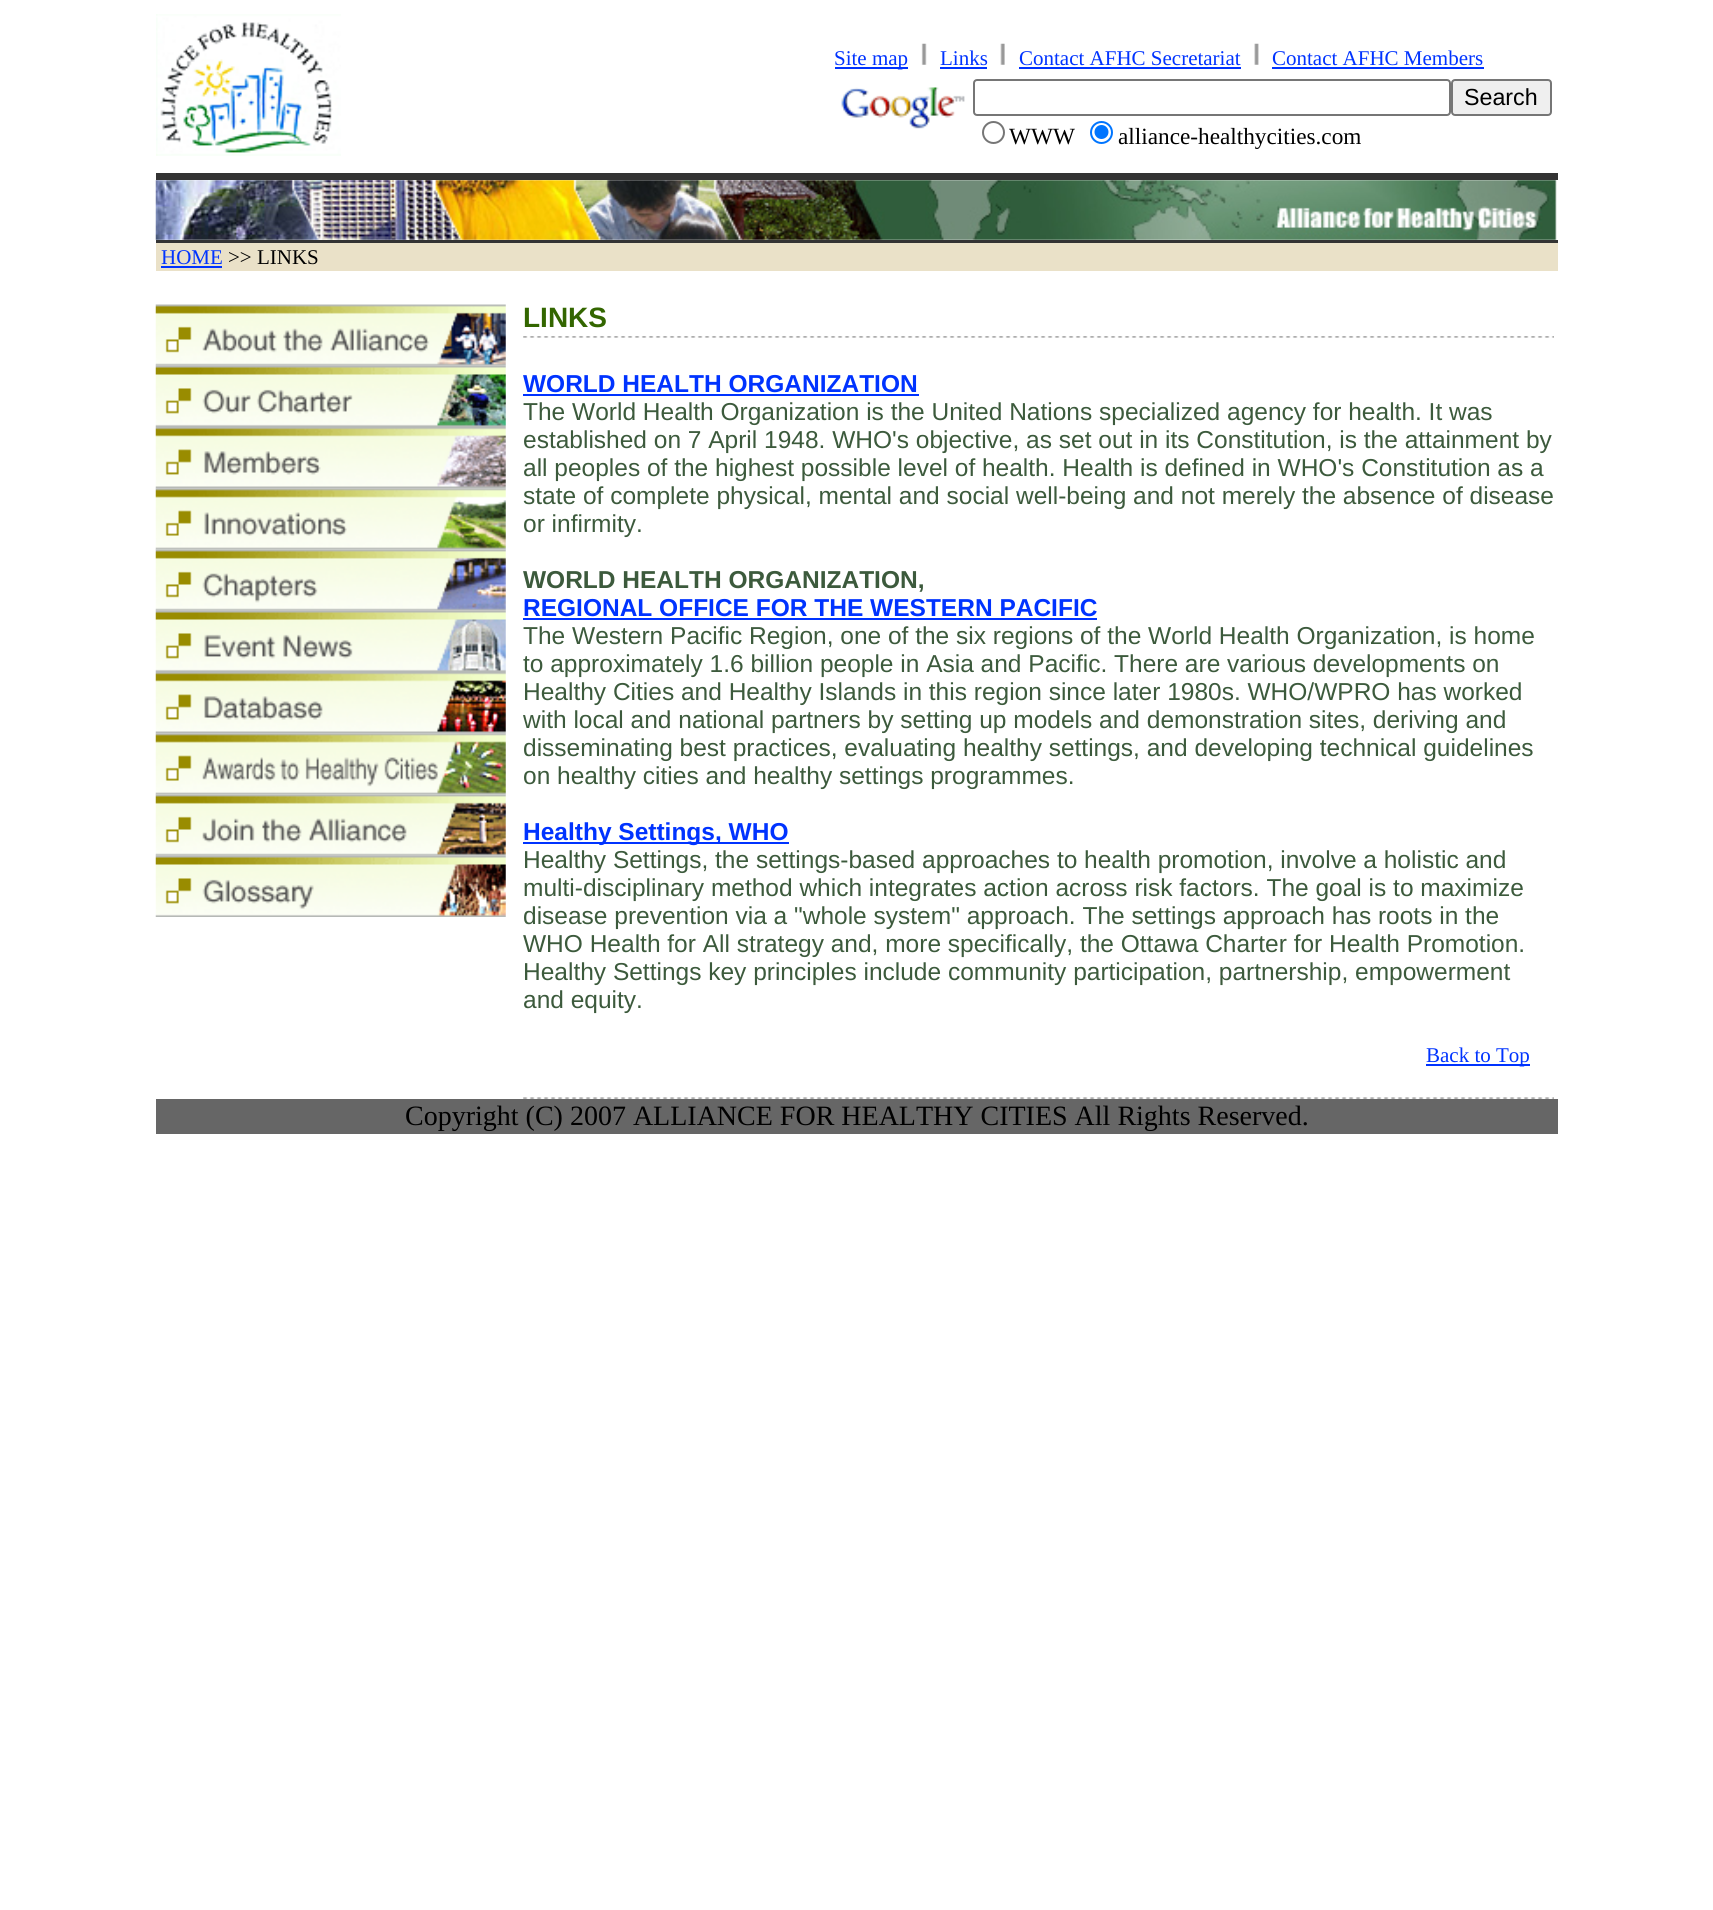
#include <cairo/cairo.h>
#include <math.h>
#include <stddef.h>

static cairo_t *cr;

static void use_color(int r, int g, int b) {
  cairo_set_source_rgb(cr, r / 255.0, g / 255.0, b / 255.0);
}

static void text(double x, double y, const char *s, const char *family, double size, int italic, int bold, int r, int g, int b) {
  cairo_select_font_face(cr, family, italic ? CAIRO_FONT_SLANT_ITALIC : CAIRO_FONT_SLANT_NORMAL,
    bold ? CAIRO_FONT_WEIGHT_BOLD : CAIRO_FONT_WEIGHT_NORMAL);
  cairo_set_font_size(cr, size);
  use_color(r, g, b);
  cairo_move_to(cr, x, y);
  cairo_show_text(cr, s);
}

static void box(double x, double y, double w, double h, int r, int g, int b) {
  use_color(r, g, b);
  cairo_rectangle(cr, x, y, w, h);
  cairo_fill(cr);
}

static void round_rect(double x, double y, double w, double h, double r) {
  cairo_new_sub_path(cr);
  cairo_arc(cr, x + w - r, y + h - r, r, 0, M_PI / 2);
  cairo_arc(cr, x + r, y + h - r, r, M_PI / 2, M_PI);
  cairo_arc(cr, x + r, y + r, r, M_PI, 1.5 * M_PI);
  cairo_arc(cr, x + w - r, y + r, r, 1.5 * M_PI, 2 * M_PI);
  cairo_close_path(cr);
}

static void picture(const char *path, double x, double y, double w, double h) {
  cairo_surface_t *image = cairo_image_surface_create_from_png(path);
  cairo_save(cr);
  cairo_set_source_surface(cr, image, x, y);
  cairo_rectangle(cr, x, y, w, h);
  cairo_fill(cr);
  cairo_restore(cr);
  cairo_surface_destroy(image);
}

static void draw(void) {
  use_color(255, 255, 255);
  cairo_paint(cr);
  picture("img_01.png", 156, 14, 185, 142);
  box(835, 67, 73, 2, 0, 51, 255);
  picture("img_02.png", 921, 43, 6, 22);
  box(940, 67, 47, 2, 0, 51, 255);
  picture("img_03.png", 1000, 43, 5, 22);
  box(1019, 67, 222, 2, 0, 51, 255);
  picture("img_04.png", 1254, 43, 5, 22);
  box(1272, 67, 212, 2, 0, 51, 255);
  picture("img_05.png", 841, 87, 124, 42);
  round_rect(974, 80, 476, 35, 3);
  use_color(118, 118, 118);
  cairo_stroke(cr);
  use_color(239, 239, 239);
  round_rect(1452, 80, 99, 35, 3);
  cairo_fill_preserve(cr);
  use_color(118, 118, 118);
  cairo_stroke(cr);
  cairo_arc(cr, 993.5, 132.5, 10.5, 0, 2 * M_PI);
  cairo_stroke(cr);
  cairo_arc(cr, 1101.5, 132.5, 10.5, 0, 2 * M_PI);
  use_color(0, 117, 255);
  cairo_stroke(cr);
  cairo_arc(cr, 1101.5, 132, 7, 0, 2 * M_PI);
  cairo_fill(cr);
  box(156, 173, 1402, 7, 51, 51, 51);
  picture("img_06.png", 155, 180, 1402, 60);
  box(156, 240, 1402, 3, 51, 51, 51);
  box(156, 243, 1402, 28, 234, 225, 200);
  box(161, 266, 61, 2, 0, 51, 255);
  picture("img_07.png", 155, 304, 351, 62);
  picture("img_08.png", 155, 365, 351, 62);
  picture("img_09.png", 155, 427, 351, 62);
  picture("img_10.png", 155, 488, 351, 62);
  picture("img_11.png", 155, 549, 351, 62);
  picture("img_12.png", 155, 610, 351, 62);
  picture("img_13.png", 155, 672, 351, 62);
  picture("img_14.png", 155, 733, 351, 62);
  picture("img_15.png", 155, 794, 351, 62);
  picture("img_16.png", 155, 855, 351, 62);
  picture("img_17.png", 523, 336, 1031, 2);
  box(523, 394, 396, 2, 0, 51, 255);
  box(523, 618, 574, 2, 0, 51, 255);
  box(523, 842, 266, 2, 0, 51, 255);
  box(1426, 1064, 104, 2, 0, 51, 255);
  picture("img_18.png", 523, 1097, 1031, 2);
  box(156, 1099, 1402, 35, 102, 102, 102);
  text(834, 65, "Site map", "Liberation Serif", 21, 0, 0, 0, 51, 255);
  text(940, 65, "Links", "Liberation Serif", 21, 0, 0, 0, 51, 255);
  text(1019, 65, "Contact AFHC Secretariat", "Liberation Serif", 21, 0, 0, 0, 51, 255);
  text(1272, 65, "Contact AFHC Members", "Liberation Serif", 21, 0, 0, 0, 51, 255);
  text(1464, 105, "Search", "Liberation Sans", 23.25, 0, 0, 0, 0, 0);
  text(1009, 144, "WWW", "Liberation Serif", 23.25, 0, 0, 0, 0, 0);
  text(1118, 144, "alliance-healthycities.com", "Liberation Serif", 23.25, 0, 0, 0, 0, 0);
  text(161, 264, "HOME", "Liberation Serif", 21, 0, 0, 0, 51, 255);
  text(228, 264, ">> LINKS", "Liberation Serif", 21, 0, 0, 0, 0, 0);
  text(523, 327, "LINKS", "Liberation Sans", 28, 0, 1, 51, 102, 0);
  text(523, 392, "WORLD HEALTH ORGANIZATION", "Liberation Sans", 24.5, 0, 1, 0, 51, 255);
  text(523, 420, "The World Health Organization is the United Nations specialized agency for health. It was", "Liberation Sans", 24.5, 0, 0, 60, 90, 60);
  text(523, 448, "established on 7 April 1948. WHO's objective, as set out in its Constitution, is the attainment by", "Liberation Sans", 24.5, 0, 0, 60, 90, 60);
  text(523, 476, "all peoples of the highest possible level of health. Health is defined in WHO's Constitution as a", "Liberation Sans", 24.5, 0, 0, 60, 90, 60);
  text(523, 504, "state of complete physical, mental and social well-being and not merely the absence of disease", "Liberation Sans", 24.5, 0, 0, 60, 90, 60);
  text(523, 532, "or infirmity.", "Liberation Sans", 24.5, 0, 0, 60, 90, 60);
  text(523, 588, "WORLD HEALTH ORGANIZATION,", "Liberation Sans", 24.5, 0, 1, 60, 90, 60);
  text(523, 616, "REGIONAL OFFICE FOR THE WESTERN PACIFIC", "Liberation Sans", 24.5, 0, 1, 0, 51, 255);
  text(523, 644, "The Western Pacific Region, one of the six regions of the World Health Organization, is home", "Liberation Sans", 24.5, 0, 0, 60, 90, 60);
  text(523, 672, "to approximately 1.6 billion people in Asia and Pacific. There are various developments on", "Liberation Sans", 24.5, 0, 0, 60, 90, 60);
  text(523, 700, "Healthy Cities and Healthy Islands in this region since later 1980s. WHO/WPRO has worked", "Liberation Sans", 24.5, 0, 0, 60, 90, 60);
  text(523, 728, "with local and national partners by setting up models and demonstration sites, deriving and", "Liberation Sans", 24.5, 0, 0, 60, 90, 60);
  text(523, 756, "disseminating best practices, evaluating healthy settings, and developing technical guidelines", "Liberation Sans", 24.5, 0, 0, 60, 90, 60);
  text(523, 784, "on healthy cities and healthy settings programmes.", "Liberation Sans", 24.5, 0, 0, 60, 90, 60);
  text(523, 840, "Healthy Settings, WHO", "Liberation Sans", 24.5, 0, 1, 0, 51, 255);
  text(523, 868, "Healthy Settings, the settings-based approaches to health promotion, involve a holistic and", "Liberation Sans", 24.5, 0, 0, 60, 90, 60);
  text(523, 896, "multi-disciplinary method which integrates action across risk factors. The goal is to maximize", "Liberation Sans", 24.5, 0, 0, 60, 90, 60);
  text(523, 924, "disease prevention via a \"whole system\" approach. The settings approach has roots in the", "Liberation Sans", 24.5, 0, 0, 60, 90, 60);
  text(523, 952, "WHO Health for All strategy and, more specifically, the Ottawa Charter for Health Promotion.", "Liberation Sans", 24.5, 0, 0, 60, 90, 60);
  text(523, 980, "Healthy Settings key principles include community participation, partnership, empowerment", "Liberation Sans", 24.5, 0, 0, 60, 90, 60);
  text(523, 1008, "and equity.", "Liberation Sans", 24.5, 0, 0, 60, 90, 60);
  text(1426, 1062, "Back to Top", "Liberation Serif", 21, 0, 0, 0, 51, 255);
  text(405, 1125, "Copyright (C) 2007 ALLIANCE FOR HEALTHY CITIES All Rights Reserved.", "Liberation Serif", 28, 0, 0, 0, 0, 0);
}

int main(void) {
  cairo_surface_t *surface = cairo_image_surface_create(CAIRO_FORMAT_RGB24, 1713, 1910);
  cr = cairo_create(surface);
  cairo_font_options_t *options = cairo_font_options_create();
  cairo_font_options_set_hint_metrics(options, CAIRO_HINT_METRICS_OFF);
  cairo_font_options_set_hint_style(options, CAIRO_HINT_STYLE_NONE);
  cairo_set_font_options(cr, options);
  cairo_set_miter_limit(cr, 4);
  draw();
  cairo_surface_write_to_png(surface, "out.png");
  cairo_font_options_destroy(options);
  cairo_destroy(cr);
  cairo_surface_destroy(surface);
  return 0;
}
